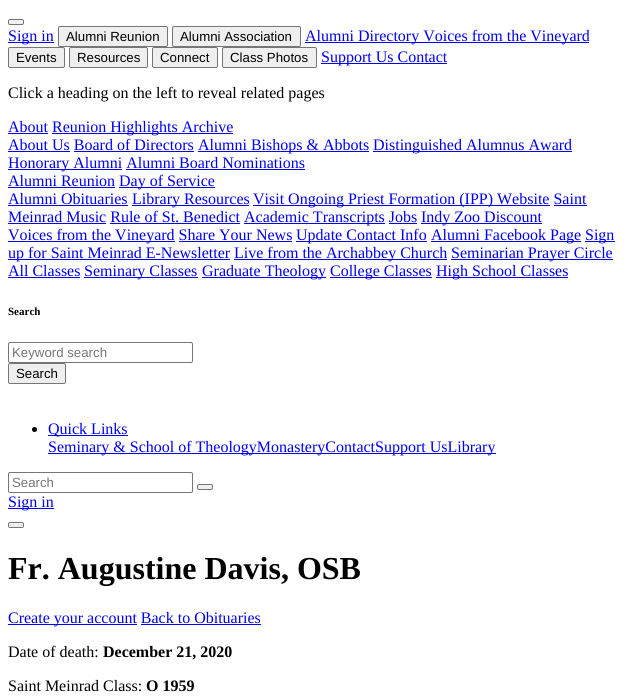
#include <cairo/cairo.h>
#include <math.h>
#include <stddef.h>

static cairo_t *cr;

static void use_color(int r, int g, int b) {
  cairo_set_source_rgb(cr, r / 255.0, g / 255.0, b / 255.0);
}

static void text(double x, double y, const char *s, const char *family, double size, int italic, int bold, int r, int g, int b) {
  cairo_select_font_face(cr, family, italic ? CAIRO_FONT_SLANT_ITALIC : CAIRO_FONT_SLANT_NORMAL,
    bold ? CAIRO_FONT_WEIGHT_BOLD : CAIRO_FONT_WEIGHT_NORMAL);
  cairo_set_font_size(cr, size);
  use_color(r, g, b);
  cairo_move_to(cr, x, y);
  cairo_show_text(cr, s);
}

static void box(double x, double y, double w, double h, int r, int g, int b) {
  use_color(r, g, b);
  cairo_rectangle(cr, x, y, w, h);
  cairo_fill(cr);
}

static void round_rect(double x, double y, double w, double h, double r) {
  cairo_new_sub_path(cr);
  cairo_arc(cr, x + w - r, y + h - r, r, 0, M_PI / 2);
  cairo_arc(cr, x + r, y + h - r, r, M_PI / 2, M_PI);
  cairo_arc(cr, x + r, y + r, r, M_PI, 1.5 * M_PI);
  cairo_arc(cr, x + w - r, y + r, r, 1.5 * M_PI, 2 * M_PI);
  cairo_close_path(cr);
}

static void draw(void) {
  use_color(255, 255, 255);
  cairo_paint(cr);
  use_color(239, 239, 239);
  round_rect(8.5, 19.5, 15, 5, 1.5);
  cairo_fill_preserve(cr);
  use_color(118, 118, 118);
  cairo_set_line_width(cr, 1);
  cairo_stroke(cr);
  box(8, 42, 46, 1, 0, 0, 238);
  use_color(239, 239, 239);
  round_rect(58.5, 26.5, 109, 20, 1.5);
  cairo_fill_preserve(cr);
  use_color(118, 118, 118);
  cairo_stroke(cr);
  use_color(239, 239, 239);
  round_rect(172.5, 26.5, 128, 20, 1.5);
  cairo_fill_preserve(cr);
  use_color(118, 118, 118);
  cairo_stroke(cr);
  box(305, 42, 284, 1, 0, 0, 238);
  use_color(239, 239, 239);
  round_rect(8.5, 47.5, 56, 20, 1.5);
  cairo_fill_preserve(cr);
  use_color(118, 118, 118);
  cairo_stroke(cr);
  use_color(239, 239, 239);
  round_rect(69.5, 47.5, 78, 20, 1.5);
  cairo_fill_preserve(cr);
  use_color(118, 118, 118);
  cairo_stroke(cr);
  use_color(239, 239, 239);
  round_rect(152.5, 47.5, 65, 20, 1.5);
  cairo_fill_preserve(cr);
  use_color(118, 118, 118);
  cairo_stroke(cr);
  use_color(239, 239, 239);
  round_rect(222.5, 47.5, 94, 20, 1.5);
  cairo_fill_preserve(cr);
  use_color(118, 118, 118);
  cairo_stroke(cr);
  box(321, 63, 126, 1, 0, 0, 238);
  box(8, 133, 40, 1, 0, 0, 238);
  box(52, 133, 181, 1, 0, 0, 238);
  box(8, 151, 62, 1, 0, 0, 238);
  box(198, 151, 171, 1, 0, 0, 238);
  box(373, 151, 199, 1, 0, 0, 238);
  box(74, 151, 120, 1, 0, 0, 238);
  box(8, 169, 114, 1, 0, 0, 238);
  box(126, 169, 179, 1, 0, 0, 238);
  box(8, 187, 107, 1, 0, 0, 238);
  box(119, 187, 96, 1, 0, 0, 238);
  box(8, 205, 120, 1, 0, 0, 238);
  box(132, 205, 117, 1, 0, 0, 238);
  box(253, 205, 297, 1, 0, 0, 238);
  box(554, 205, 33, 1, 0, 0, 238);
  box(8, 223, 98, 1, 0, 0, 238);
  box(244, 223, 141, 1, 0, 0, 238);
  box(421, 223, 121, 1, 0, 0, 238);
  box(110, 223, 130, 1, 0, 0, 238);
  box(389, 223, 28, 1, 0, 0, 238);
  box(8, 241, 167, 1, 0, 0, 238);
  box(296, 241, 131, 1, 0, 0, 238);
  box(431, 241, 150, 1, 0, 0, 238);
  box(585, 241, 30, 1, 0, 0, 238);
  box(179, 241, 113, 1, 0, 0, 238);
  box(8, 259, 222, 1, 0, 0, 238);
  box(234, 259, 213, 1, 0, 0, 238);
  box(451, 259, 162, 1, 0, 0, 238);
  box(8, 277, 72, 1, 0, 0, 238);
  box(84, 277, 114, 1, 0, 0, 238);
  box(202, 277, 124, 1, 0, 0, 238);
  box(330, 277, 102, 1, 0, 0, 238);
  box(436, 277, 132, 1, 0, 0, 238);
  round_rect(8.5, 342.5, 184, 20, 1.5);
  use_color(118, 118, 118);
  cairo_stroke(cr);
  use_color(239, 239, 239);
  round_rect(8.5, 363.5, 57, 20, 1.5);
  cairo_fill_preserve(cr);
  use_color(118, 118, 118);
  cairo_stroke(cr);
  use_color(0, 0, 0);
  cairo_arc(cr, 34.5, 429.5, 2.5, 0, 2 * M_PI);
  cairo_fill(cr);
  box(48, 435, 80, 1, 0, 0, 238);
  box(48, 453, 277, 1, 0, 0, 238);
  box(325, 453, 171, 1, 0, 0, 238);
  round_rect(8.5, 472.5, 184, 20, 1.5);
  use_color(118, 118, 118);
  cairo_stroke(cr);
  use_color(239, 239, 239);
  round_rect(197.5, 484.5, 15, 5, 1.5);
  cairo_fill_preserve(cr);
  use_color(118, 118, 118);
  cairo_stroke(cr);
  box(8, 508, 46, 1, 0, 0, 238);
  use_color(239, 239, 239);
  round_rect(8.5, 522.5, 15, 5, 1.5);
  cairo_fill_preserve(cr);
  use_color(118, 118, 118);
  cairo_stroke(cr);
  box(8, 624, 129, 1, 0, 0, 238);
  box(141, 624, 120, 1, 0, 0, 238);
  text(8, 41, "Sign in", "Liberation Serif", 16, 0, 0, 0, 0, 238);
  text(66, 41, "Alumni Reunion", "Liberation Sans", 13.25, 0, 0, 0, 0, 0);
  text(180, 41, "Alumni Association", "Liberation Sans", 13.25, 0, 0, 0, 0, 0);
  text(305, 41, "Alumni Directory Voices from the Vineyard", "Liberation Serif", 16, 0, 0, 0, 0, 238);
  text(16, 62, "Events", "Liberation Sans", 13.25, 0, 0, 0, 0, 0);
  text(77, 62, "Resources", "Liberation Sans", 13.25, 0, 0, 0, 0, 0);
  text(160, 62, "Connect", "Liberation Sans", 13.25, 0, 0, 0, 0, 0);
  text(230, 62, "Class Photos", "Liberation Sans", 13.25, 0, 0, 0, 0, 0);
  text(321, 62, "Support Us Contact", "Liberation Serif", 16, 0, 0, 0, 0, 238);
  text(8, 98, "Click a heading on the left to reveal related pages", "Liberation Serif", 16, 0, 0, 0, 0, 0);
  text(8, 132, "About", "Liberation Serif", 16, 0, 0, 0, 0, 238);
  text(52, 132, "Reunion Highlights Archive", "Liberation Serif", 16, 0, 0, 0, 0, 238);
  text(8, 150, "About Us Board of Directors", "Liberation Serif", 16, 0, 0, 0, 0, 238);
  text(198, 150, "Alumni Bishops & Abbots", "Liberation Serif", 16, 0, 0, 0, 0, 238);
  text(373, 150, "Distinguished Alumnus Award", "Liberation Serif", 16, 0, 0, 0, 0, 238);
  text(8, 168, "Honorary Alumni Alumni Board Nominations", "Liberation Serif", 16, 0, 0, 0, 0, 238);
  text(8, 186, "Alumni Reunion", "Liberation Serif", 16, 0, 0, 0, 0, 238);
  text(119, 186, "Day of Service", "Liberation Serif", 16, 0, 0, 0, 0, 238);
  text(8, 204, "Alumni Obituaries", "Liberation Serif", 16, 0, 0, 0, 0, 238);
  text(132, 204, "Library Resources", "Liberation Serif", 16, 0, 0, 0, 0, 238);
  text(253, 204, "Visit Ongoing Priest Formation (IPP) Website Saint", "Liberation Serif", 16, 0, 0, 0, 0, 238);
  text(8, 222, "Meinrad Music Rule of St. Benedict", "Liberation Serif", 16, 0, 0, 0, 0, 238);
  text(244, 222, "Academic Transcripts Jobs", "Liberation Serif", 16, 0, 0, 0, 0, 238);
  text(421, 222, "Indy Zoo Discount", "Liberation Serif", 16, 0, 0, 0, 0, 238);
  text(8, 240, "Voices from the Vineyard Share Your News", "Liberation Serif", 16, 0, 0, 0, 0, 238);
  text(296, 240, "Update Contact Info", "Liberation Serif", 16, 0, 0, 0, 0, 238);
  text(431, 240, "Alumni Facebook Page", "Liberation Serif", 16, 0, 0, 0, 0, 238);
  text(585, 240, "Sign", "Liberation Serif", 16, 0, 0, 0, 0, 238);
  text(8, 258, "up for Saint Meinrad E-Newsletter", "Liberation Serif", 16, 0, 0, 0, 0, 238);
  text(234, 258, "Live from the Archabbey Church", "Liberation Serif", 16, 0, 0, 0, 0, 238);
  text(451, 258, "Seminarian Prayer Circle", "Liberation Serif", 16, 0, 0, 0, 0, 238);
  text(8, 276, "All Classes", "Liberation Serif", 16, 0, 0, 0, 0, 238);
  text(84, 276, "Seminary Classes", "Liberation Serif", 16, 0, 0, 0, 0, 238);
  text(202, 276, "Graduate Theology", "Liberation Serif", 16, 0, 0, 0, 0, 238);
  text(330, 276, "College Classes", "Liberation Serif", 16, 0, 0, 0, 0, 238);
  text(436, 276, "High School Classes", "Liberation Serif", 16, 0, 0, 0, 0, 238);
  text(8, 315, "Search", "Liberation Serif", 11, 0, 1, 0, 0, 0);
  text(12, 357, "Keyword search", "Liberation Sans", 13.25, 0, 0, 117, 117, 117);
  text(16, 378, "Search", "Liberation Sans", 13.25, 0, 0, 0, 0, 0);
  text(48, 434, "Quick Links", "Liberation Serif", 16, 0, 0, 0, 0, 238);
  text(48, 452, "Seminary & School of TheologyMonasteryContact", "Liberation Serif", 16, 0, 0, 0, 0, 238);
  text(375, 452, "Support UsLibrary", "Liberation Serif", 16, 0, 0, 0, 0, 238);
  text(12, 487, "Search", "Liberation Sans", 13.25, 0, 0, 117, 117, 117);
  text(8, 507, "Sign in", "Liberation Serif", 16, 0, 0, 0, 0, 238);
  text(8, 579, "Fr. Augustine Davis, OSB", "Liberation Serif", 32, 0, 1, 0, 0, 0);
  text(8, 623, "Create your account Back to Obituaries", "Liberation Serif", 16, 0, 0, 0, 0, 238);
  text(8, 657, "Date of death:", "Liberation Serif", 16, 0, 0, 0, 0, 0);
  text(103, 657, "December 21, 2020", "Liberation Serif", 16, 0, 1, 0, 0, 0);
  text(8, 691, "Saint Meinrad Class:", "Liberation Serif", 16, 0, 0, 0, 0, 0);
  text(146, 691, "O 1959", "Liberation Serif", 16, 0, 1, 0, 0, 0);
}

int main(void) {
  cairo_surface_t *surface = cairo_image_surface_create(CAIRO_FORMAT_RGB24, 642, 696);
  cr = cairo_create(surface);
  cairo_font_options_t *options = cairo_font_options_create();
  cairo_font_options_set_hint_metrics(options, CAIRO_HINT_METRICS_OFF);
  cairo_font_options_set_hint_style(options, CAIRO_HINT_STYLE_NONE);
  cairo_set_font_options(cr, options);
  cairo_set_miter_limit(cr, 4);
  draw();
  cairo_surface_write_to_png(surface, "out.png");
  cairo_font_options_destroy(options);
  cairo_destroy(cr);
  cairo_surface_destroy(surface);
  return 0;
}
